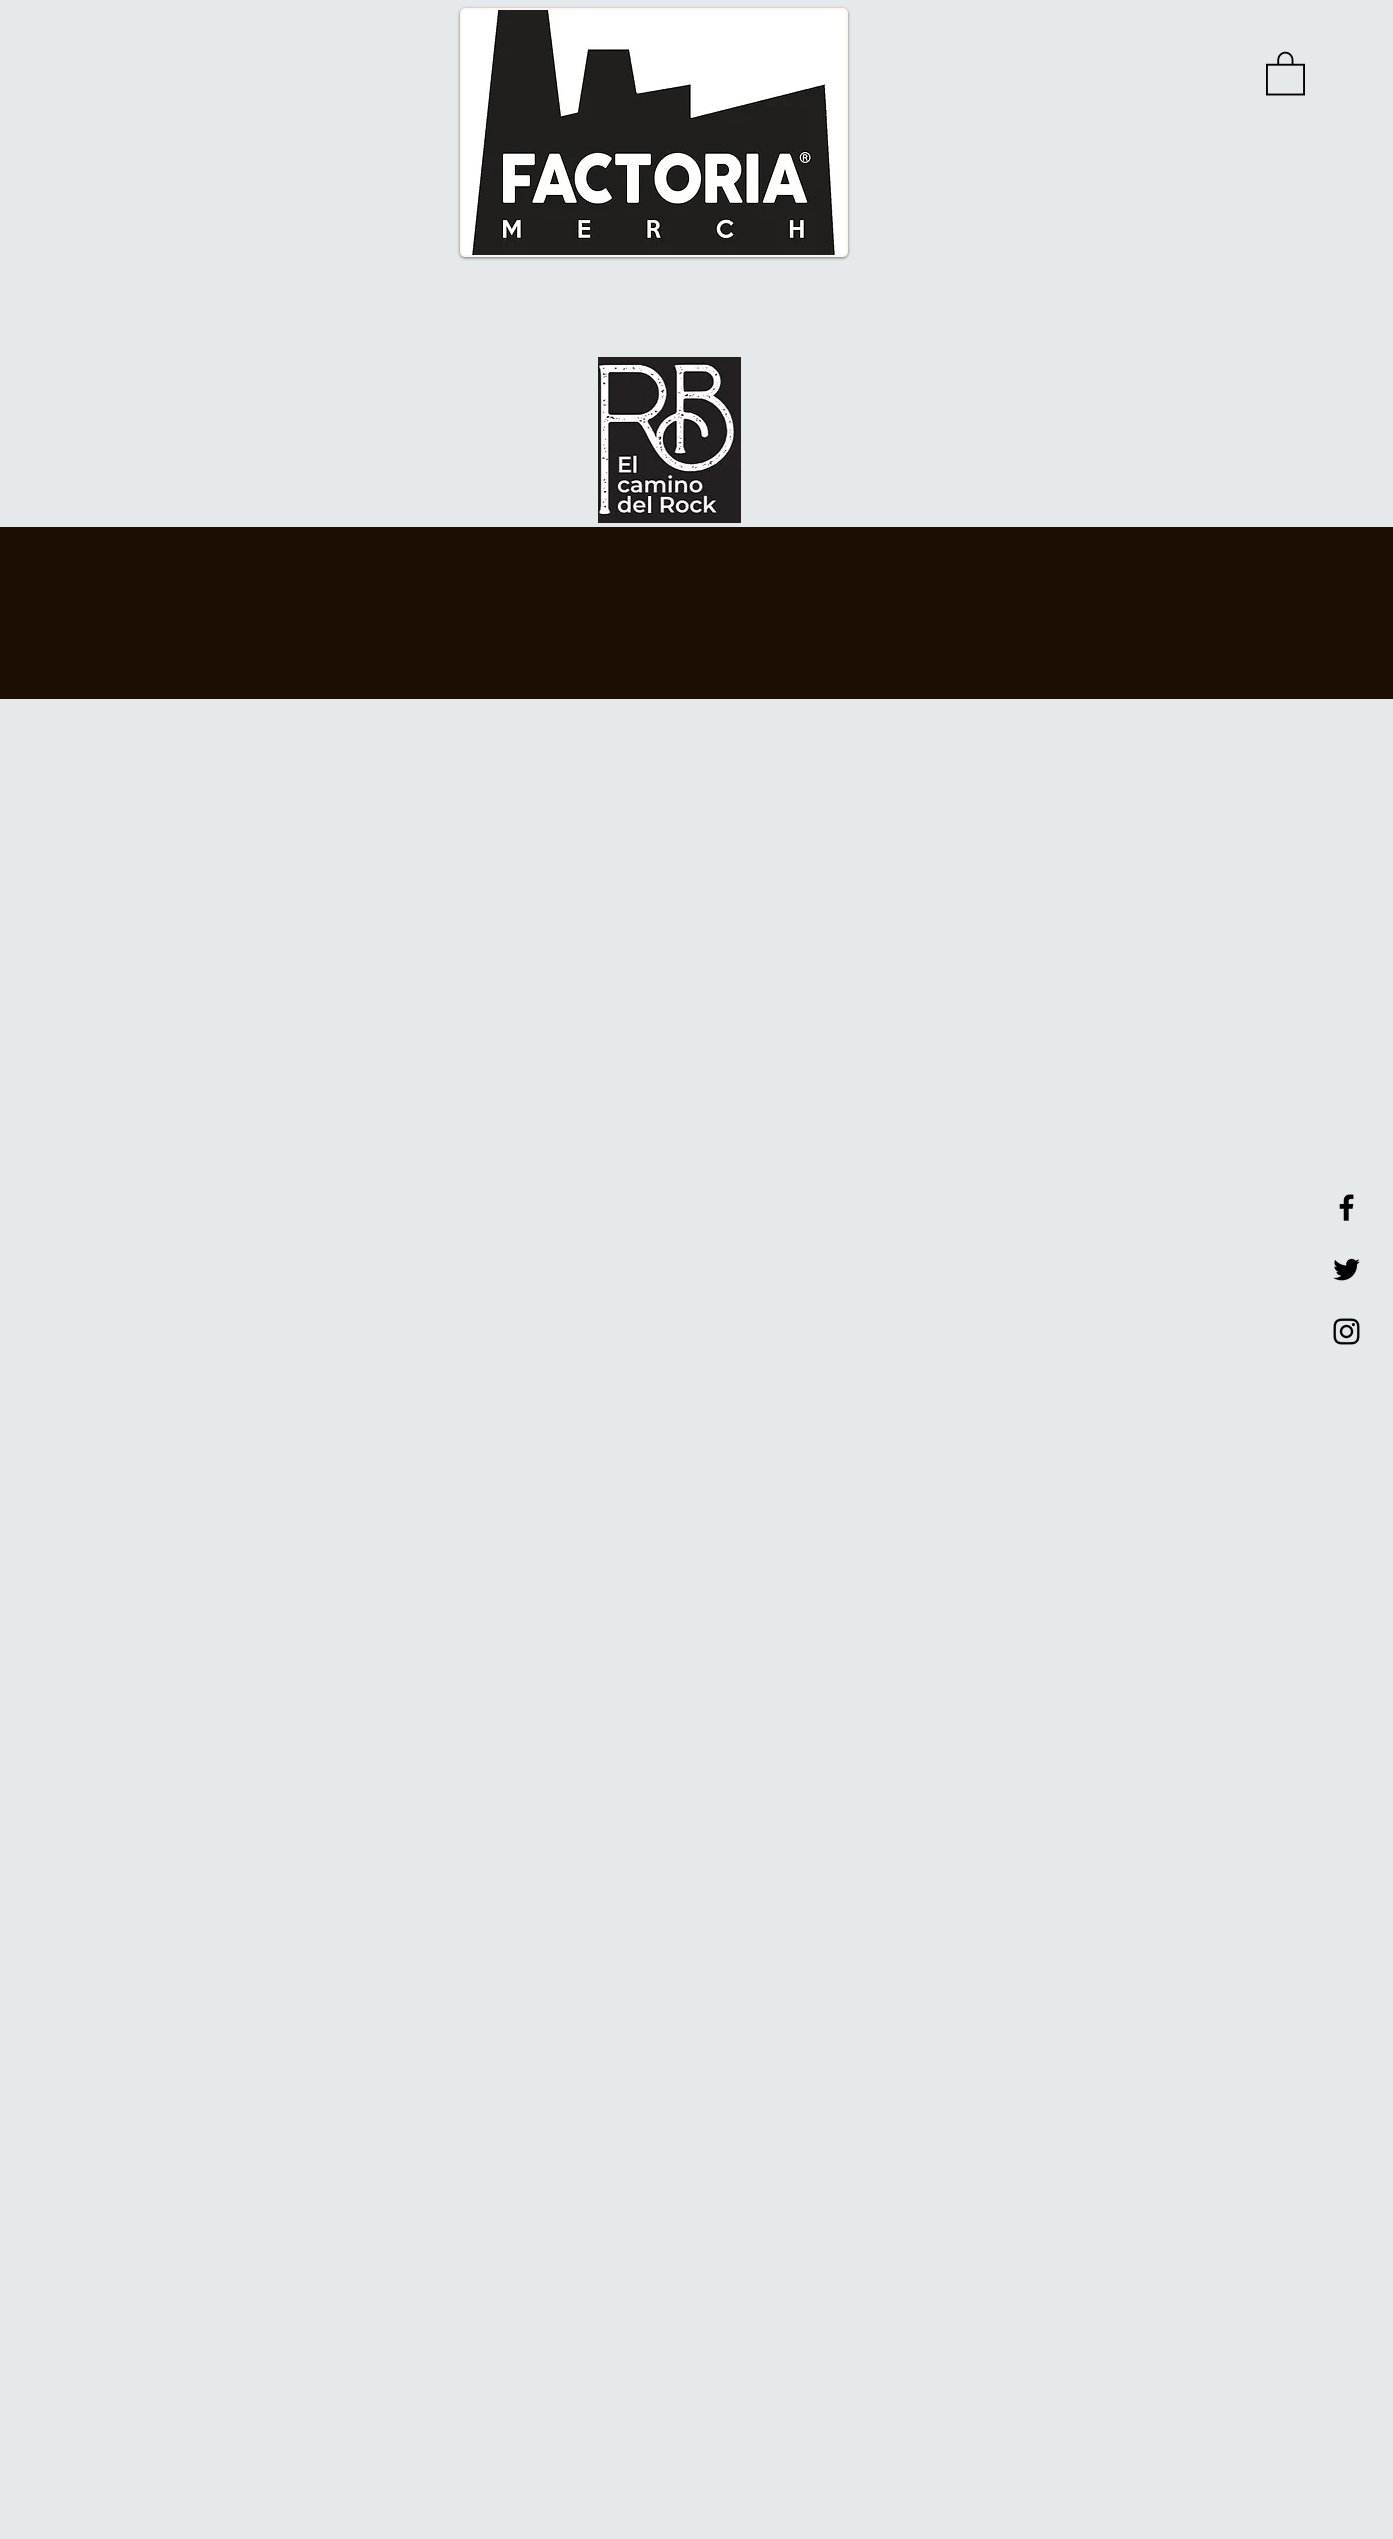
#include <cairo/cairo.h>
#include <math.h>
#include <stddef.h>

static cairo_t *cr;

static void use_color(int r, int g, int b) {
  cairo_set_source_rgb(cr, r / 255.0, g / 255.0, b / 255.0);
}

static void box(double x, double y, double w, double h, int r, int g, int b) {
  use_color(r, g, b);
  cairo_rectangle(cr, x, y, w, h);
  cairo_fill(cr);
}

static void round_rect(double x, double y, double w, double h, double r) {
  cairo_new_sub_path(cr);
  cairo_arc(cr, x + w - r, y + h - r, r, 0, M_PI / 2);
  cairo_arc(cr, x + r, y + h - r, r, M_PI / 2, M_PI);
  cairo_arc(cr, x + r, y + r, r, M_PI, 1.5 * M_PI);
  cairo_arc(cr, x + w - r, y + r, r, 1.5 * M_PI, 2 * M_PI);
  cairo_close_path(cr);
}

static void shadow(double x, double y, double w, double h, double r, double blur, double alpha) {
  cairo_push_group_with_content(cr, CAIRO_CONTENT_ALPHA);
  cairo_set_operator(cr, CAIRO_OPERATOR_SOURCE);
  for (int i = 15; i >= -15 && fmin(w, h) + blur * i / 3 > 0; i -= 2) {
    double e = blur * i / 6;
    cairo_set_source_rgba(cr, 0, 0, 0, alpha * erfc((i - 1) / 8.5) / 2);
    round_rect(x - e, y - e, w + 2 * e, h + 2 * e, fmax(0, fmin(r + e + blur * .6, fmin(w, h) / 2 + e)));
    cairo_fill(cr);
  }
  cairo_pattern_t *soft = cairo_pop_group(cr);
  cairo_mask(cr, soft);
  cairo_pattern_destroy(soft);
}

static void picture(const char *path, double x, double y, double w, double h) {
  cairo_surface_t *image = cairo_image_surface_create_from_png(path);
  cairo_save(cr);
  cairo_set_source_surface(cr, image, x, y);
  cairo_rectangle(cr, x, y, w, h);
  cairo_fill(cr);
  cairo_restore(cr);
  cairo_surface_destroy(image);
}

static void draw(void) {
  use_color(230, 233, 235);
  cairo_paint(cr);
  use_color(0, 0, 0);
  shadow(460, 9, 388, 249, 5, 1.5, 0.5);
  use_color(255, 246, 239);
  round_rect(461, 9, 386, 247, 4);
  cairo_fill_preserve(cr);
  cairo_stroke(cr);
  picture("img_01.png", 462, 10, 384, 245);
  picture("img_02.png", 1266, 51, 39, 45);
  picture("img_03.png", 598, 357, 143, 166);
  box(0, 527, 1393, 172, 29, 14, 3);
  picture("img_04.png", 1339, 1194, 15, 27);
  picture("img_05.png", 1333, 1258, 27, 23);
  picture("img_06.png", 1333, 1318, 27, 27);
}

int main(void) {
  cairo_surface_t *surface = cairo_image_surface_create(CAIRO_FORMAT_RGB24, 1393, 2539);
  cr = cairo_create(surface);
  cairo_font_options_t *options = cairo_font_options_create();
  cairo_font_options_set_hint_metrics(options, CAIRO_HINT_METRICS_OFF);
  cairo_font_options_set_hint_style(options, CAIRO_HINT_STYLE_NONE);
  cairo_set_font_options(cr, options);
  cairo_set_miter_limit(cr, 4);
  draw();
  cairo_surface_write_to_png(surface, "out.png");
  cairo_font_options_destroy(options);
  cairo_destroy(cr);
  cairo_surface_destroy(surface);
  return 0;
}
